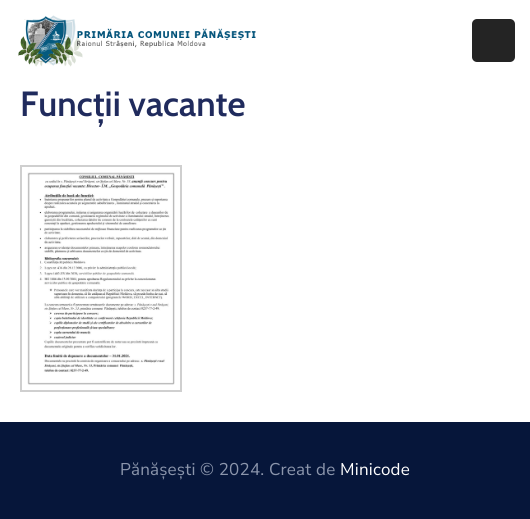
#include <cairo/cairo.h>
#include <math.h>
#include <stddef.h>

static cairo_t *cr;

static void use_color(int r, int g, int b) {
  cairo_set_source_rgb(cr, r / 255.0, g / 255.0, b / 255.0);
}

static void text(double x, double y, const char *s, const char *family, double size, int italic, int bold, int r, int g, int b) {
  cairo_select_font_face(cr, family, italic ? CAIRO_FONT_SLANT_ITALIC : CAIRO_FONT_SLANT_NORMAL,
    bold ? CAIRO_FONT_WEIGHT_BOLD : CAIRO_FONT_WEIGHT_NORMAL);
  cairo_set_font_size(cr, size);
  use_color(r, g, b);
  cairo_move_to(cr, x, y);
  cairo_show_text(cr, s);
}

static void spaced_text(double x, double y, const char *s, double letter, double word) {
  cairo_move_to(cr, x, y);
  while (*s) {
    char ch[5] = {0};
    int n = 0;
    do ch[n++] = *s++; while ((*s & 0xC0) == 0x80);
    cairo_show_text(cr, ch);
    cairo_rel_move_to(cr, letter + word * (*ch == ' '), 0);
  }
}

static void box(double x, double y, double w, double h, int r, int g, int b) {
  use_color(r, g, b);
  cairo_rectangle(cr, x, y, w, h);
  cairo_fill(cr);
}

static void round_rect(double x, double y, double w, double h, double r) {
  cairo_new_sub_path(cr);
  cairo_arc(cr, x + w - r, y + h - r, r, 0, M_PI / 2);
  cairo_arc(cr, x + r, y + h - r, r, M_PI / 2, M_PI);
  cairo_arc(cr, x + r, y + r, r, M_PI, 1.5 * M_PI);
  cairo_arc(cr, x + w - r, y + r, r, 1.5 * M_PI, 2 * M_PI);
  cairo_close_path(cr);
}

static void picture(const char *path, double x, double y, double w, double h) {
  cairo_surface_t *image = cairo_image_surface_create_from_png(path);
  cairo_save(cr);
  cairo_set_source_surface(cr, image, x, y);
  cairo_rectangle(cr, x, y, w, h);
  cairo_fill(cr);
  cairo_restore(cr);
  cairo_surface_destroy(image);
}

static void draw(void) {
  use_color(255, 255, 255);
  cairo_paint(cr);
  picture("img_01.png", 18, 15, 238, 52);
  use_color(36, 36, 36);
  round_rect(472, 19, 43, 43, 5);
  cairo_fill(cr);
  cairo_rectangle(cr, 21, 166, 160, 225);
  use_color(207, 207, 207);
  cairo_stroke(cr);
  picture("img_02.png", 27, 172, 148, 213);
  box(0, 422, 530, 97, 6, 22, 58);
  text(20, 116, "Funcții vacante", "Cabin SemiBold", 35, 0, 0, 32, 43, 93);
  cairo_select_font_face(cr, "Nunito Sans", CAIRO_FONT_SLANT_NORMAL, CAIRO_FONT_WEIGHT_NORMAL);
  cairo_set_font_size(cr, 17);
  use_color(140, 150, 172);
  spaced_text(120, 475, "Pănășești © 2024. Creat de", 0.2, 0);
  use_color(255, 255, 255);
  spaced_text(340, 475, "Minicode", 0.2, 0);
}

int main(void) {
  cairo_surface_t *surface = cairo_image_surface_create(CAIRO_FORMAT_RGB24, 530, 519);
  cr = cairo_create(surface);
  cairo_font_options_t *options = cairo_font_options_create();
  cairo_font_options_set_hint_metrics(options, CAIRO_HINT_METRICS_OFF);
  cairo_font_options_set_hint_style(options, CAIRO_HINT_STYLE_NONE);
  cairo_set_font_options(cr, options);
  cairo_set_miter_limit(cr, 4);
  draw();
  cairo_surface_write_to_png(surface, "out.png");
  cairo_font_options_destroy(options);
  cairo_destroy(cr);
  cairo_surface_destroy(surface);
  return 0;
}
